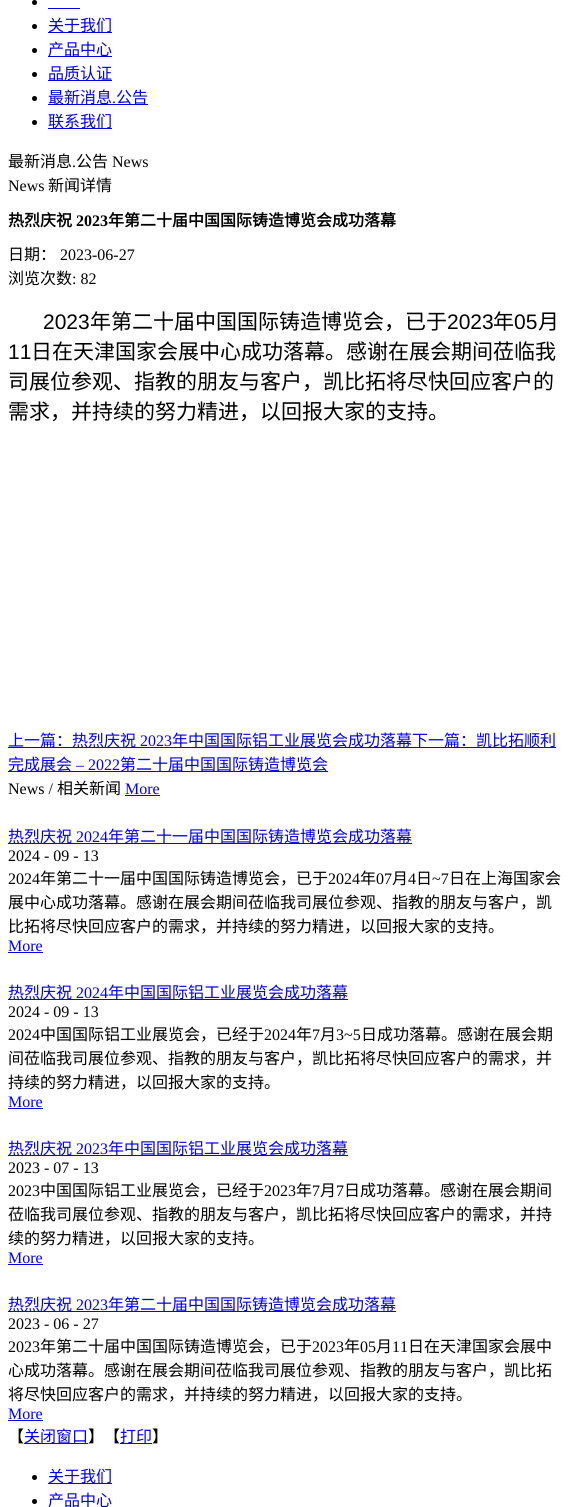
#include <cairo/cairo.h>
#include <math.h>
#include <stddef.h>

static cairo_t *cr;

static void use_color(int r, int g, int b) {
  cairo_set_source_rgb(cr, r / 255.0, g / 255.0, b / 255.0);
}

static void text(double x, double y, const char *s, const char *family, double size, int italic, int bold, int r, int g, int b) {
  cairo_select_font_face(cr, family, italic ? CAIRO_FONT_SLANT_ITALIC : CAIRO_FONT_SLANT_NORMAL,
    bold ? CAIRO_FONT_WEIGHT_BOLD : CAIRO_FONT_WEIGHT_NORMAL);
  cairo_set_font_size(cr, size);
  use_color(r, g, b);
  cairo_move_to(cr, x, y);
  cairo_show_text(cr, s);
}

static void box(double x, double y, double w, double h, int r, int g, int b) {
  use_color(r, g, b);
  cairo_rectangle(cr, x, y, w, h);
  cairo_fill(cr);
}

static void draw(void) {
  use_color(255, 255, 255);
  cairo_paint(cr);
  use_color(0, 0, 0);
  cairo_arc(cr, 34.5, 2.5, 2.5, 0, 2 * M_PI);
  cairo_fill(cr);
  box(48, 8, 32, 1, 0, 0, 238);
  use_color(0, 0, 0);
  cairo_arc(cr, 34.5, 26.5, 2.5, 0, 2 * M_PI);
  cairo_fill(cr);
  box(48, 32, 64, 1, 0, 0, 238);
  use_color(0, 0, 0);
  cairo_arc(cr, 34.5, 50.5, 2.5, 0, 2 * M_PI);
  cairo_fill(cr);
  box(48, 56, 64, 1, 0, 0, 238);
  use_color(0, 0, 0);
  cairo_arc(cr, 34.5, 74.5, 2.5, 0, 2 * M_PI);
  cairo_fill(cr);
  box(48, 80, 64, 1, 0, 0, 238);
  use_color(0, 0, 0);
  cairo_arc(cr, 34.5, 98.5, 2.5, 0, 2 * M_PI);
  cairo_fill(cr);
  box(48, 104, 100, 1, 0, 0, 238);
  use_color(0, 0, 0);
  cairo_arc(cr, 34.5, 122.5, 2.5, 0, 2 * M_PI);
  cairo_fill(cr);
  box(48, 128, 64, 1, 0, 0, 238);
  box(8, 747, 548, 1, 0, 0, 238);
  box(8, 771, 320, 1, 0, 0, 238);
  box(125, 795, 35, 1, 0, 0, 238);
  box(8, 843, 404, 1, 0, 0, 238);
  box(8, 952, 35, 1, 0, 0, 238);
  box(8, 999, 340, 1, 0, 0, 238);
  box(8, 1108, 35, 1, 0, 0, 238);
  box(8, 1155, 340, 1, 0, 0, 238);
  box(8, 1264, 35, 1, 0, 0, 238);
  box(8, 1311, 388, 1, 0, 0, 238);
  box(8, 1420, 35, 1, 0, 0, 238);
  box(24, 1443, 64, 1, 0, 0, 238);
  box(120, 1443, 32, 1, 0, 0, 238);
  use_color(0, 0, 0);
  cairo_arc(cr, 34.5, 1477.5, 2.5, 0, 2 * M_PI);
  cairo_fill(cr);
  box(48, 1483, 64, 1, 0, 0, 238);
  use_color(0, 0, 0);
  cairo_arc(cr, 34.5, 1501.5, 2.5, 0, 2 * M_PI);
  cairo_fill(cr);
  text(48, 31, "关于我们", "Noto Sans CJK SC", 16, 0, 0, 0, 0, 238);
  text(48, 55, "产品中心", "Noto Sans CJK SC", 16, 0, 0, 0, 0, 238);
  text(48, 79, "品质认证", "Noto Sans CJK SC", 16, 0, 0, 0, 0, 238);
  text(48, 103, "最新消息", "Noto Sans CJK SC", 16, 0, 0, 0, 0, 238);
  text(116, 103, "公告", "Noto Sans CJK SC", 16, 0, 0, 0, 0, 238);
  text(112, 103, ".", "Liberation Serif", 16, 0, 0, 0, 0, 238);
  text(48, 127, "联系我们", "Noto Sans CJK SC", 16, 0, 0, 0, 0, 238);
  text(8, 167, "最新消息", "Noto Sans CJK SC", 16, 0, 0, 0, 0, 0);
  text(72, 167, ".", "Liberation Serif", 16, 0, 0, 0, 0, 0);
  text(76, 167, "公告", "Noto Sans CJK SC", 16, 0, 0, 0, 0, 0);
  text(112, 167, "News", "Liberation Serif", 16, 0, 0, 0, 0, 0);
  text(8, 191, "News", "Liberation Serif", 16, 0, 0, 0, 0, 0);
  text(48, 191, "新闻详情", "Noto Sans CJK SC", 16, 0, 0, 0, 0, 0);
  text(8, 226, "热烈庆祝", "Noto Sans CJK SC", 16, 0, 1, 0, 0, 0);
  text(76, 226, "2023", "Liberation Serif", 16, 0, 1, 0, 0, 0);
  text(108, 226, "年第二十届中国国际铸造博览会成功落幕", "Noto Sans CJK SC", 16, 0, 1, 0, 0, 0);
  text(8, 260, "日期：", "Noto Sans CJK SC", 16, 0, 0, 0, 0, 0);
  text(60, 260, "2023-06-27", "Liberation Serif", 16, 0, 0, 0, 0, 0);
  text(8, 284, "浏览次数", "Noto Sans CJK SC", 16, 0, 0, 0, 0, 0);
  text(72, 284, ": 82", "Liberation Serif", 16, 0, 0, 0, 0, 0);
  text(43, 329, "2023", "Liberation Sans", 21, 0, 0, 0, 0, 0);
  text(90, 329, "年第二十届中国国际铸造博览会，已于", "Noto Sans CJK SC", 21, 0, 0, 0, 0, 0);
  text(447, 329, "2023", "Liberation Sans", 21, 0, 0, 0, 0, 0);
  text(493, 329, "年", "Noto Sans CJK SC", 21, 0, 0, 0, 0, 0);
  text(514, 329, "05", "Liberation Sans", 21, 0, 0, 0, 0, 0);
  text(538, 329, "月", "Noto Sans CJK SC", 21, 0, 0, 0, 0, 0);
  text(8, 359, "11", "Liberation Sans", 21, 0, 0, 0, 0, 0);
  text(31, 359, "日在天津国家会展中心成功落幕。感谢在展会期间莅临我", "Noto Sans CJK SC", 21, 0, 0, 0, 0, 0);
  text(8, 389, "司展位参观、指教的朋友与客户，凯比拓将尽快回应客户的", "Noto Sans CJK SC", 21, 0, 0, 0, 0, 0);
  text(8, 419, "需求，并持续的努力精进，以回报大家的支持。", "Noto Sans CJK SC", 21, 0, 0, 0, 0, 0);
  text(8, 746, "上一篇：热烈庆祝", "Noto Sans CJK SC", 16, 0, 0, 0, 0, 238);
  text(140, 746, "2023", "Liberation Serif", 16, 0, 0, 0, 0, 238);
  text(172, 746, "年中国国际铝工业展览会成功落幕下一篇：凯比拓顺利", "Noto Sans CJK SC", 16, 0, 0, 0, 0, 238);
  text(8, 770, "完成展会", "Noto Sans CJK SC", 16, 0, 0, 0, 0, 238);
  text(76, 770, "– 2022", "Liberation Serif", 16, 0, 0, 0, 0, 238);
  text(120, 770, "第二十届中国国际铸造博览会", "Noto Sans CJK SC", 16, 0, 0, 0, 0, 238);
  text(8, 794, "News /", "Liberation Serif", 16, 0, 0, 0, 0, 0);
  text(57, 794, "相关新闻", "Noto Sans CJK SC", 16, 0, 0, 0, 0, 0);
  text(125, 794, "More", "Liberation Serif", 16, 0, 0, 0, 0, 238);
  text(8, 842, "热烈庆祝", "Noto Sans CJK SC", 16, 0, 0, 0, 0, 238);
  text(76, 842, "2024", "Liberation Serif", 16, 0, 0, 0, 0, 238);
  text(108, 842, "年第二十一届中国国际铸造博览会成功落幕", "Noto Sans CJK SC", 16, 0, 0, 0, 0, 238);
  text(8, 861, "2024 - 09 - 13", "Liberation Serif", 16, 0, 0, 0, 0, 0);
  text(8, 884, "2024", "Liberation Serif", 16, 0, 0, 0, 0, 0);
  text(40, 884, "年第二十一届中国国际铸造博览会，已于", "Noto Sans CJK SC", 16, 0, 0, 0, 0, 0);
  text(328, 884, "2024", "Liberation Serif", 16, 0, 0, 0, 0, 0);
  text(360, 884, "年", "Noto Sans CJK SC", 16, 0, 0, 0, 0, 0);
  text(376, 884, "07", "Liberation Serif", 16, 0, 0, 0, 0, 0);
  text(392, 884, "月", "Noto Sans CJK SC", 16, 0, 0, 0, 0, 0);
  text(408, 884, "4", "Liberation Serif", 16, 0, 0, 0, 0, 0);
  text(416, 884, "日", "Noto Sans CJK SC", 16, 0, 0, 0, 0, 0);
  text(432, 884, "~7", "Liberation Serif", 16, 0, 0, 0, 0, 0);
  text(449, 884, "日在上海国家会", "Noto Sans CJK SC", 16, 0, 0, 0, 0, 0);
  text(8, 908, "展中心成功落幕。感谢在展会期间莅临我司展位参观、指教的朋友与客户，凯", "Noto Sans CJK SC", 16, 0, 0, 0, 0, 0);
  text(8, 932, "比拓将尽快回应客户的需求，并持续的努力精进，以回报大家的支持。", "Noto Sans CJK SC", 16, 0, 0, 0, 0, 0);
  text(8, 951, "More", "Liberation Serif", 16, 0, 0, 0, 0, 238);
  text(8, 998, "热烈庆祝", "Noto Sans CJK SC", 16, 0, 0, 0, 0, 238);
  text(76, 998, "2024", "Liberation Serif", 16, 0, 0, 0, 0, 238);
  text(108, 998, "年中国国际铝工业展览会成功落幕", "Noto Sans CJK SC", 16, 0, 0, 0, 0, 238);
  text(8, 1017, "2024 - 09 - 13", "Liberation Serif", 16, 0, 0, 0, 0, 0);
  text(8, 1040, "2024", "Liberation Serif", 16, 0, 0, 0, 0, 0);
  text(40, 1040, "中国国际铝工业展览会，已经于", "Noto Sans CJK SC", 16, 0, 0, 0, 0, 0);
  text(264, 1040, "2024", "Liberation Serif", 16, 0, 0, 0, 0, 0);
  text(296, 1040, "年", "Noto Sans CJK SC", 16, 0, 0, 0, 0, 0);
  text(312, 1040, "7", "Liberation Serif", 16, 0, 0, 0, 0, 0);
  text(320, 1040, "月", "Noto Sans CJK SC", 16, 0, 0, 0, 0, 0);
  text(336, 1040, "3~5", "Liberation Serif", 16, 0, 0, 0, 0, 0);
  text(361, 1040, "日成功落幕。感谢在展会期", "Noto Sans CJK SC", 16, 0, 0, 0, 0, 0);
  text(8, 1064, "间莅临我司展位参观、指教的朋友与客户，凯比拓将尽快回应客户的需求，并", "Noto Sans CJK SC", 16, 0, 0, 0, 0, 0);
  text(8, 1088, "持续的努力精进，以回报大家的支持。", "Noto Sans CJK SC", 16, 0, 0, 0, 0, 0);
  text(8, 1107, "More", "Liberation Serif", 16, 0, 0, 0, 0, 238);
  text(8, 1154, "热烈庆祝", "Noto Sans CJK SC", 16, 0, 0, 0, 0, 238);
  text(76, 1154, "2023", "Liberation Serif", 16, 0, 0, 0, 0, 238);
  text(108, 1154, "年中国国际铝工业展览会成功落幕", "Noto Sans CJK SC", 16, 0, 0, 0, 0, 238);
  text(8, 1173, "2023 - 07 - 13", "Liberation Serif", 16, 0, 0, 0, 0, 0);
  text(8, 1196, "2023", "Liberation Serif", 16, 0, 0, 0, 0, 0);
  text(40, 1196, "中国国际铝工业展览会，已经于", "Noto Sans CJK SC", 16, 0, 0, 0, 0, 0);
  text(264, 1196, "2023", "Liberation Serif", 16, 0, 0, 0, 0, 0);
  text(296, 1196, "年", "Noto Sans CJK SC", 16, 0, 0, 0, 0, 0);
  text(312, 1196, "7", "Liberation Serif", 16, 0, 0, 0, 0, 0);
  text(320, 1196, "月", "Noto Sans CJK SC", 16, 0, 0, 0, 0, 0);
  text(336, 1196, "7", "Liberation Serif", 16, 0, 0, 0, 0, 0);
  text(344, 1196, "日成功落幕。感谢在展会期间", "Noto Sans CJK SC", 16, 0, 0, 0, 0, 0);
  text(8, 1220, "莅临我司展位参观、指教的朋友与客户，凯比拓将尽快回应客户的需求，并持", "Noto Sans CJK SC", 16, 0, 0, 0, 0, 0);
  text(8, 1244, "续的努力精进，以回报大家的支持。", "Noto Sans CJK SC", 16, 0, 0, 0, 0, 0);
  text(8, 1263, "More", "Liberation Serif", 16, 0, 0, 0, 0, 238);
  text(8, 1310, "热烈庆祝", "Noto Sans CJK SC", 16, 0, 0, 0, 0, 238);
  text(76, 1310, "2023", "Liberation Serif", 16, 0, 0, 0, 0, 238);
  text(108, 1310, "年第二十届中国国际铸造博览会成功落幕", "Noto Sans CJK SC", 16, 0, 0, 0, 0, 238);
  text(8, 1329, "2023 - 06 - 27", "Liberation Serif", 16, 0, 0, 0, 0, 0);
  text(8, 1352, "2023", "Liberation Serif", 16, 0, 0, 0, 0, 0);
  text(40, 1352, "年第二十届中国国际铸造博览会，已于", "Noto Sans CJK SC", 16, 0, 0, 0, 0, 0);
  text(312, 1352, "2023", "Liberation Serif", 16, 0, 0, 0, 0, 0);
  text(344, 1352, "年", "Noto Sans CJK SC", 16, 0, 0, 0, 0, 0);
  text(360, 1352, "05", "Liberation Serif", 16, 0, 0, 0, 0, 0);
  text(376, 1352, "月", "Noto Sans CJK SC", 16, 0, 0, 0, 0, 0);
  text(392, 1352, "11", "Liberation Serif", 16, 0, 0, 0, 0, 0);
  text(408, 1352, "日在天津国家会展中", "Noto Sans CJK SC", 16, 0, 0, 0, 0, 0);
  text(8, 1376, "心成功落幕。感谢在展会期间莅临我司展位参观、指教的朋友与客户，凯比拓", "Noto Sans CJK SC", 16, 0, 0, 0, 0, 0);
  text(8, 1400, "将尽快回应客户的需求，并持续的努力精进，以回报大家的支持。", "Noto Sans CJK SC", 16, 0, 0, 0, 0, 0);
  text(8, 1419, "More", "Liberation Serif", 16, 0, 0, 0, 0, 238);
  text(8, 1442, "【", "Noto Sans CJK SC", 16, 0, 0, 0, 0, 0);
  text(24, 1442, "关闭窗口", "Noto Sans CJK SC", 16, 0, 0, 0, 0, 238);
  text(88, 1442, "】【", "Noto Sans CJK SC", 16, 0, 0, 0, 0, 0);
  text(120, 1442, "打印", "Noto Sans CJK SC", 16, 0, 0, 0, 0, 238);
  text(152, 1442, "】", "Noto Sans CJK SC", 16, 0, 0, 0, 0, 0);
  text(48, 1482, "关于我们", "Noto Sans CJK SC", 16, 0, 0, 0, 0, 238);
  text(48, 1506, "产品中心", "Noto Sans CJK SC", 16, 0, 0, 0, 0, 238);
}

int main(void) {
  cairo_surface_t *surface = cairo_image_surface_create(CAIRO_FORMAT_RGB24, 574, 1507);
  cr = cairo_create(surface);
  cairo_font_options_t *options = cairo_font_options_create();
  cairo_font_options_set_hint_metrics(options, CAIRO_HINT_METRICS_OFF);
  cairo_font_options_set_hint_style(options, CAIRO_HINT_STYLE_NONE);
  cairo_set_font_options(cr, options);
  cairo_set_miter_limit(cr, 4);
  draw();
  cairo_surface_write_to_png(surface, "out.png");
  cairo_font_options_destroy(options);
  cairo_destroy(cr);
  cairo_surface_destroy(surface);
  return 0;
}
